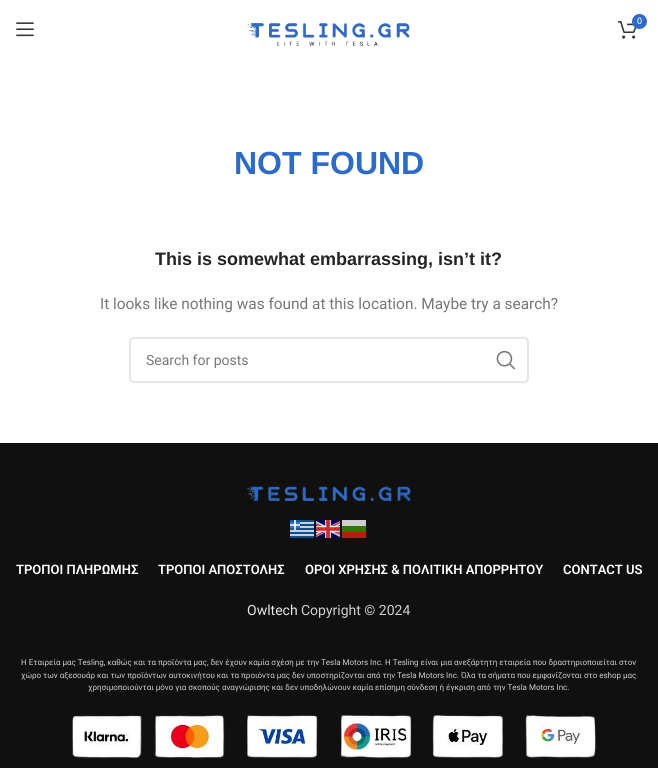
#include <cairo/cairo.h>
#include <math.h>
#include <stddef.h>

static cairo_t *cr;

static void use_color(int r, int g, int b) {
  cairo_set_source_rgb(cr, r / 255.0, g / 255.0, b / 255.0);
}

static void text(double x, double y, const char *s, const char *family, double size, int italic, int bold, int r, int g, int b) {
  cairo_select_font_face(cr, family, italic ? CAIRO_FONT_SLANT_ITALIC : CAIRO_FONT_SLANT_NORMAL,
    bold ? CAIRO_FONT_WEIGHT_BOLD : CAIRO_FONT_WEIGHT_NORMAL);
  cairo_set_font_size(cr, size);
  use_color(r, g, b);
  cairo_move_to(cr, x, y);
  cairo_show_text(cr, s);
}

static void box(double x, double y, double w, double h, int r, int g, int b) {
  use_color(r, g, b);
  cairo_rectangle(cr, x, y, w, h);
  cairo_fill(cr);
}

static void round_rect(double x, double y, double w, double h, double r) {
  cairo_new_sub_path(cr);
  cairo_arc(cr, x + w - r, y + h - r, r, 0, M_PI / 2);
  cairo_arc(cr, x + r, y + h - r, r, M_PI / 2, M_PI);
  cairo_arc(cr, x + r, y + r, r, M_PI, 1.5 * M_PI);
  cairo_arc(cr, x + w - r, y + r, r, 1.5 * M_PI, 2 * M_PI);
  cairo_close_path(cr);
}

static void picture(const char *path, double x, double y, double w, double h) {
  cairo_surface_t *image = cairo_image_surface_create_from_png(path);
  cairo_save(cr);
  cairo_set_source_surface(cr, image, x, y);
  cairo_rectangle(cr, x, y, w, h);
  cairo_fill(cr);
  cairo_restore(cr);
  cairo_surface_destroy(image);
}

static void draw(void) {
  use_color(255, 255, 255);
  cairo_paint(cr);
  picture("img_01.png", 618, 21, 19, 18);
  use_color(46, 107, 198);
  cairo_arc(cr, 639.5, 21.5, 7.5, 0, 2 * M_PI);
  cairo_fill(cr);
  picture("img_02.png", 16, 22, 18, 15);
  picture("img_03.png", 247, 23, 163, 23);
  round_rect(130, 338, 398, 44, 4);
  use_color(230, 230, 230);
  cairo_stroke(cr);
  picture("img_04.png", 496, 350, 20, 20);
  box(0, 443, 658, 325, 16, 16, 16);
  picture("img_05.png", 247, 486, 164, 21);
  picture("img_06.png", 290, 520, 24, 18);
  picture("img_07.png", 316, 520, 24, 18);
  box(342, 520, 24, 6, 207, 207, 207);
  box(342, 526, 24, 6, 42, 122, 3);
  box(342, 532, 24, 6, 181, 30, 16);
  picture("img_08.png", 72, 715, 524, 43);
  text(637, 24, "0", "Roboto", 9, 0, 0, 255, 255, 255);
  text(234, 174, "NOT FOUND", "Liberation Sans", 32, 0, 1, 46, 107, 198);
  text(155, 265, "This is somewhat embarrassing, isn’t it?", "Liberation Sans", 18, 0, 1, 36, 36, 36);
  text(100, 309, "It looks like nothing was found at this location. Maybe try a search?", "Roboto", 15.4, 0, 0, 119, 119, 119);
  text(146, 365, "Search for posts", "Roboto", 14, 0, 0, 119, 119, 119);
  text(16, 574, "ΤΡΟΠΟΙ ΠΛΗΡΩΜΗΣ", "Roboto SemiBold", 13, 0, 0, 255, 255, 255);
  text(158, 574, "ΤΡΟΠΟΙ ΑΠΟΣΤΟΛΗΣ", "Roboto SemiBold", 13, 0, 0, 255, 255, 255);
  text(305, 574, "ΟΡΟΙ ΧΡΗΣΗΣ & ΠΟΛΙΤΙΚΗ ΑΠΟΡΡΗΤΟΥ", "Roboto SemiBold", 13, 0, 0, 255, 255, 255);
  text(563, 574, "CONTACT US", "Roboto SemiBold", 13, 0, 0, 255, 255, 255);
  text(247, 615, "Owltech", "Roboto", 14, 0, 0, 231, 231, 231);
  text(301, 615, "Copyright © 2024", "Roboto", 14, 0, 0, 207, 207, 207);
  text(21, 665, "H Εταιρεία μας Tesling, καθώς και τα προϊόντα μας, δεν έχουν καμία σχέση με την Tesla Motors Inc. Η Tesling είναι μια ανεξάρτητη εταιρεία που δραστηριοποιείται στον", "Roboto", 8, 0, 0, 207, 207, 207);
  text(21, 678, "χώρο των αξεσουάρ και των προϊόντων αυτοκινήτου και τα προιόντα μας δεν υποστηρίζονται από την Tesla Motors Inc. Όλα τα σήματα που εμφανίζονται στο eshop μας", "Roboto", 8, 0, 0, 207, 207, 207);
  text(88, 690, "χρησιμοποιούνται μόνο για σκοπούς αναγνώρισης και δεν υποδηλώνουν καμία επίσημη σύνδεση ή έγκριση από την Tesla Motors Inc.", "Roboto", 8, 0, 0, 207, 207, 207);
}

int main(void) {
  cairo_surface_t *surface = cairo_image_surface_create(CAIRO_FORMAT_RGB24, 658, 768);
  cr = cairo_create(surface);
  cairo_font_options_t *options = cairo_font_options_create();
  cairo_font_options_set_hint_metrics(options, CAIRO_HINT_METRICS_OFF);
  cairo_font_options_set_hint_style(options, CAIRO_HINT_STYLE_NONE);
  cairo_set_font_options(cr, options);
  cairo_set_miter_limit(cr, 4);
  draw();
  cairo_surface_write_to_png(surface, "out.png");
  cairo_font_options_destroy(options);
  cairo_destroy(cr);
  cairo_surface_destroy(surface);
  return 0;
}
